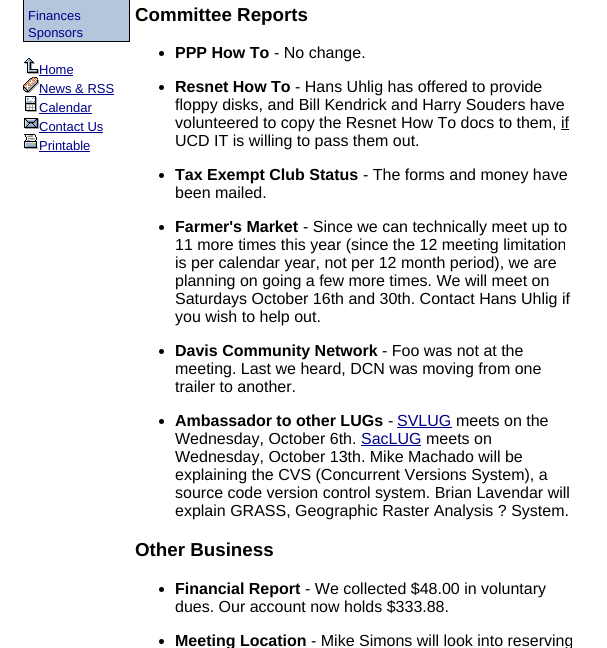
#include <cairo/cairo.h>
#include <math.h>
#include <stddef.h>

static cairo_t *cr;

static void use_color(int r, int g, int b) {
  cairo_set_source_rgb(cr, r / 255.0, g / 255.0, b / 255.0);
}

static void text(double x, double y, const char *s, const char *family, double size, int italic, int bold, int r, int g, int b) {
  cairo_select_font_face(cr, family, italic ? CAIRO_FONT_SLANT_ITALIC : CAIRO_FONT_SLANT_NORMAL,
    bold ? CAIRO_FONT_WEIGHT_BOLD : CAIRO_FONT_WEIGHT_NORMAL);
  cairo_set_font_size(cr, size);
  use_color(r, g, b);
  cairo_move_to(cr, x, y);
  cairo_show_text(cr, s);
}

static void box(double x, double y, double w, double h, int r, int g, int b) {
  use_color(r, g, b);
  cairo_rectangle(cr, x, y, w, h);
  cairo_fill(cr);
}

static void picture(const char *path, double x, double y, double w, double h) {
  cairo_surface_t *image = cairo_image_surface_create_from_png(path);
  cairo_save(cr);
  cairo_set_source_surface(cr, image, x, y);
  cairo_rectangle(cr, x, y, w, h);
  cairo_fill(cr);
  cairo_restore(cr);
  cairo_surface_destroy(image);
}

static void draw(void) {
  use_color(255, 255, 255);
  cairo_paint(cr);
  box(23, 0, 107, 42, 0, 0, 0);
  box(24, 0, 105, 41, 179, 198, 220);
  picture("img_01.png", 24, 58, 15, 16);
  box(39, 75, 34, 1, 0, 0, 136);
  picture("img_02.png", 23, 77, 16, 16);
  box(39, 94, 75, 1, 0, 0, 136);
  picture("img_03.png", 25, 96, 12, 16);
  box(39, 113, 53, 1, 0, 0, 136);
  picture("img_04.png", 24, 118, 15, 11);
  box(39, 132, 64, 1, 0, 0, 136);
  picture("img_05.png", 24, 134, 14, 15);
  box(39, 151, 51, 1, 0, 0, 136);
  use_color(0, 0, 0);
  cairo_arc(cr, 161.5, 53.5, 2.5, 0, 2 * M_PI);
  cairo_fill(cr);
  cairo_arc(cr, 161.5, 87.5, 2.5, 0, 2 * M_PI);
  cairo_fill(cr);
  box(561, 129, 8, 1, 0, 0, 0);
  cairo_arc(cr, 161.5, 175.5, 2.5, 0, 2 * M_PI);
  cairo_fill(cr);
  cairo_arc(cr, 161.5, 227.5, 2.5, 0, 2 * M_PI);
  cairo_fill(cr);
  cairo_arc(cr, 161.5, 351.5, 2.5, 0, 2 * M_PI);
  cairo_fill(cr);
  cairo_arc(cr, 161.5, 421.5, 2.5, 0, 2 * M_PI);
  cairo_fill(cr);
  box(397, 427, 55, 1, 0, 0, 136);
  box(361, 445, 60, 1, 0, 0, 136);
  use_color(0, 0, 0);
  cairo_arc(cr, 161.5, 589.5, 2.5, 0, 2 * M_PI);
  cairo_fill(cr);
  cairo_arc(cr, 161.5, 641.5, 2.5, 0, 2 * M_PI);
  cairo_fill(cr);
  text(28, 20, "Finances", "Liberation Sans", 13, 0, 0, 0, 0, 136);
  text(28, 37, "Sponsors", "Liberation Sans", 13, 0, 0, 0, 0, 136);
  text(39, 74, "Home", "Liberation Sans", 13, 0, 0, 0, 0, 136);
  text(39, 93, "News & RSS", "Liberation Sans", 13, 0, 0, 0, 0, 136);
  text(39, 112, "Calendar", "Liberation Sans", 13, 0, 0, 0, 0, 136);
  text(39, 131, "Contact Us", "Liberation Sans", 13, 0, 0, 0, 0, 136);
  text(39, 150, "Printable", "Liberation Sans", 13, 0, 0, 0, 0, 136);
  text(135, 21, "Committee Reports", "Liberation Sans", 18.75, 0, 1, 0, 0, 0);
  text(175, 58, "PPP How To", "Liberation Sans", 16, 0, 1, 0, 0, 0);
  text(274, 58, "- No change.", "Liberation Sans", 16, 0, 0, 0, 0, 0);
  text(175, 92, "Resnet How To", "Liberation Sans", 16, 0, 1, 0, 0, 0);
  text(295, 92, "- Hans Uhlig has offered to provide", "Liberation Sans", 16, 0, 0, 0, 0, 0);
  text(175, 110, "floppy disks, and Bill Kendrick and Harry Souders have", "Liberation Sans", 16, 0, 0, 0, 0, 0);
  text(175, 128, "volunteered to copy the Resnet How To docs to them, if", "Liberation Sans", 16, 0, 0, 0, 0, 0);
  text(175, 146, "UCD IT is willing to pass them out.", "Liberation Sans", 16, 0, 0, 0, 0, 0);
  text(175, 180, "Tax Exempt Club Status", "Liberation Sans", 16, 0, 1, 0, 0, 0);
  text(363, 180, "- The forms and money have", "Liberation Sans", 16, 0, 0, 0, 0, 0);
  text(175, 198, "been mailed.", "Liberation Sans", 16, 0, 0, 0, 0, 0);
  text(175, 232, "Farmer's Market", "Liberation Sans", 16, 0, 1, 0, 0, 0);
  text(303, 232, "- Since we can technically meet up to", "Liberation Sans", 16, 0, 0, 0, 0, 0);
  text(175, 250, "11 more times this year (since the 12 meeting limitation", "Liberation Sans", 16, 0, 0, 0, 0, 0);
  text(175, 268, "is per calendar year, not per 12 month period), we are", "Liberation Sans", 16, 0, 0, 0, 0, 0);
  text(175, 286, "planning on going a few more times. We will meet on", "Liberation Sans", 16, 0, 0, 0, 0, 0);
  text(175, 304, "Saturdays October 16th and 30th. Contact Hans Uhlig if", "Liberation Sans", 16, 0, 0, 0, 0, 0);
  text(175, 322, "you wish to help out.", "Liberation Sans", 16, 0, 0, 0, 0, 0);
  text(175, 356, "Davis Community Network", "Liberation Sans", 16, 0, 1, 0, 0, 0);
  text(382, 356, "- Foo was not at the", "Liberation Sans", 16, 0, 0, 0, 0, 0);
  text(175, 374, "meeting. Last we heard, DCN was moving from one", "Liberation Sans", 16, 0, 0, 0, 0, 0);
  text(175, 392, "trailer to another.", "Liberation Sans", 16, 0, 0, 0, 0, 0);
  text(175, 426, "Ambassador to other LUGs", "Liberation Sans", 16, 0, 1, 0, 0, 0);
  text(388, 426, "-", "Liberation Sans", 16, 0, 0, 0, 0, 0);
  text(397, 426, "SVLUG", "Liberation Sans", 16, 0, 0, 0, 0, 136);
  text(456, 426, "meets on the", "Liberation Sans", 16, 0, 0, 0, 0, 0);
  text(175, 444, "Wednesday, October 6th.", "Liberation Sans", 16, 0, 0, 0, 0, 0);
  text(361, 444, "SacLUG", "Liberation Sans", 16, 0, 0, 0, 0, 136);
  text(426, 444, "meets on", "Liberation Sans", 16, 0, 0, 0, 0, 0);
  text(175, 462, "Wednesday, October 13th. Mike Machado will be", "Liberation Sans", 16, 0, 0, 0, 0, 0);
  text(175, 480, "explaining the CVS (Concurrent Versions System), a", "Liberation Sans", 16, 0, 0, 0, 0, 0);
  text(175, 498, "source code version control system. Brian Lavendar will", "Liberation Sans", 16, 0, 0, 0, 0, 0);
  text(175, 516, "explain GRASS, Geographic Raster Analysis ? System.", "Liberation Sans", 16, 0, 0, 0, 0, 0);
  text(135, 556, "Other Business", "Liberation Sans", 18.75, 0, 1, 0, 0, 0);
  text(175, 594, "Financial Report", "Liberation Sans", 16, 0, 1, 0, 0, 0);
  text(305, 594, "- We collected $48.00 in voluntary", "Liberation Sans", 16, 0, 0, 0, 0, 0);
  text(175, 612, "dues. Our account now holds $333.88.", "Liberation Sans", 16, 0, 0, 0, 0, 0);
  text(175, 646, "Meeting Location", "Liberation Sans", 16, 0, 1, 0, 0, 0);
  text(311, 646, "- Mike Simons will look into reserving", "Liberation Sans", 16, 0, 0, 0, 0, 0);
}

int main(void) {
  cairo_surface_t *surface = cairo_image_surface_create(CAIRO_FORMAT_RGB24, 607, 648);
  cr = cairo_create(surface);
  cairo_font_options_t *options = cairo_font_options_create();
  cairo_font_options_set_hint_metrics(options, CAIRO_HINT_METRICS_OFF);
  cairo_font_options_set_hint_style(options, CAIRO_HINT_STYLE_NONE);
  cairo_set_font_options(cr, options);
  cairo_set_miter_limit(cr, 4);
  draw();
  cairo_surface_write_to_png(surface, "out.png");
  cairo_font_options_destroy(options);
  cairo_destroy(cr);
  cairo_surface_destroy(surface);
  return 0;
}
